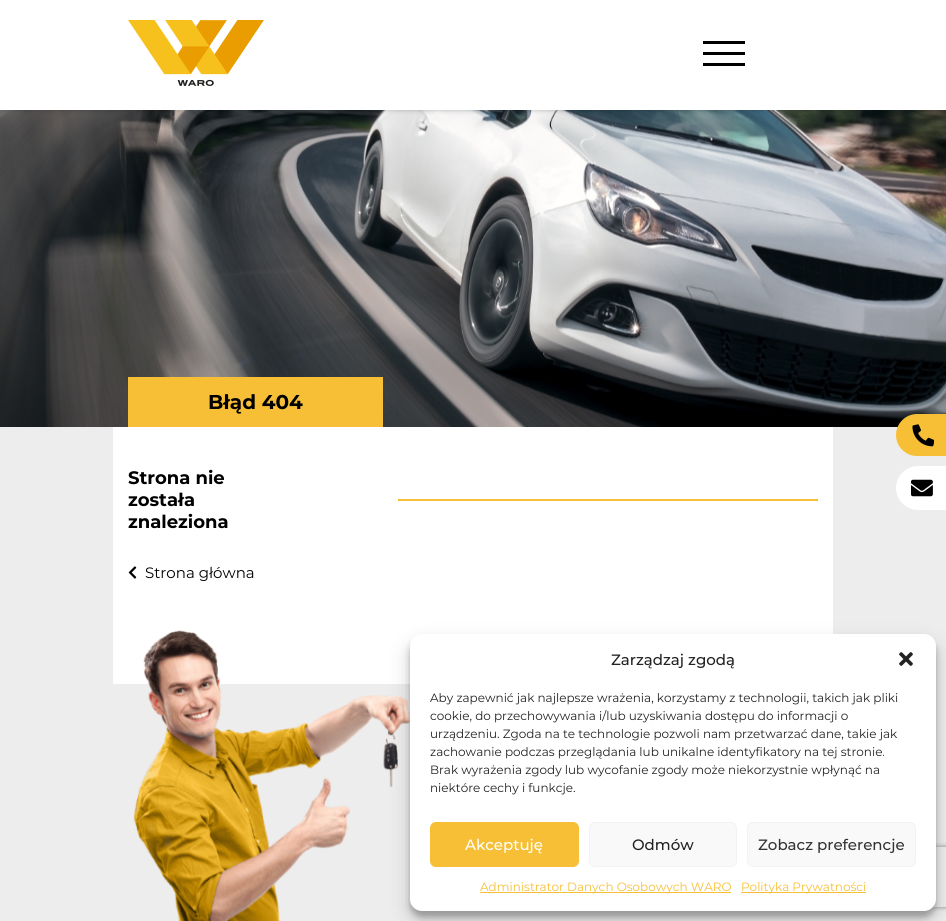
#include <cairo/cairo.h>
#include <math.h>
#include <stddef.h>

static cairo_t *cr;

static void use_color(int r, int g, int b) {
  cairo_set_source_rgb(cr, r / 255.0, g / 255.0, b / 255.0);
}

static void text(double x, double y, const char *s, const char *family, double size, int italic, int bold, int r, int g, int b) {
  cairo_select_font_face(cr, family, italic ? CAIRO_FONT_SLANT_ITALIC : CAIRO_FONT_SLANT_NORMAL,
    bold ? CAIRO_FONT_WEIGHT_BOLD : CAIRO_FONT_WEIGHT_NORMAL);
  cairo_set_font_size(cr, size);
  use_color(r, g, b);
  cairo_move_to(cr, x, y);
  cairo_show_text(cr, s);
}

static void box(double x, double y, double w, double h, int r, int g, int b) {
  use_color(r, g, b);
  cairo_rectangle(cr, x, y, w, h);
  cairo_fill(cr);
}

static void round_rect(double x, double y, double w, double h, double r) {
  cairo_new_sub_path(cr);
  cairo_arc(cr, x + w - r, y + h - r, r, 0, M_PI / 2);
  cairo_arc(cr, x + r, y + h - r, r, M_PI / 2, M_PI);
  cairo_arc(cr, x + r, y + r, r, M_PI, 1.5 * M_PI);
  cairo_arc(cr, x + w - r, y + r, r, 1.5 * M_PI, 2 * M_PI);
  cairo_close_path(cr);
}

static void shadow(double x, double y, double w, double h, double r, double blur, double alpha) {
  cairo_push_group_with_content(cr, CAIRO_CONTENT_ALPHA);
  cairo_set_operator(cr, CAIRO_OPERATOR_SOURCE);
  for (int i = 15; i >= -15 && fmin(w, h) + blur * i / 3 > 0; i -= 2) {
    double e = blur * i / 6;
    cairo_set_source_rgba(cr, 0, 0, 0, alpha * erfc((i - 1) / 8.5) / 2);
    round_rect(x - e, y - e, w + 2 * e, h + 2 * e, fmax(0, fmin(r + e + blur * .6, fmin(w, h) / 2 + e)));
    cairo_fill(cr);
  }
  cairo_pattern_t *soft = cairo_pop_group(cr);
  cairo_mask(cr, soft);
  cairo_pattern_destroy(soft);
}

static void picture(const char *path, double x, double y, double w, double h) {
  cairo_surface_t *image = cairo_image_surface_create_from_png(path);
  cairo_save(cr);
  cairo_set_source_surface(cr, image, x, y);
  cairo_rectangle(cr, x, y, w, h);
  cairo_fill(cr);
  cairo_restore(cr);
  cairo_surface_destroy(image);
}

static void draw(void) {
  use_color(237, 237, 237);
  cairo_paint(cr);
  picture("img_01.png", 0, 110, 946, 317);
  use_color(0, 0, 0);
  shadow(0, 0, 946, 110, 0, 2.5, 0.25);
  box(0, 0, 946, 110, 255, 255, 255);
  picture("img_02.png", 128, 20, 136, 66);
  box(703, 41, 42, 3, 0, 0, 0);
  box(703, 52, 42, 3, 0, 0, 0);
  box(703, 63, 42, 3, 0, 0, 0);
  box(113, 427, 720, 257, 255, 255, 255);
  box(128, 377, 255, 50, 246, 191, 54);
  box(398, 499, 420, 2, 246, 191, 54);
  picture("img_03.png", 128, 566, 9, 13);
  cairo_new_path(cr);
  cairo_move_to(cr, 917, 414);
  cairo_line_to(cr, 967, 414);
  cairo_line_to(cr, 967, 456);
  cairo_line_to(cr, 917, 456);
  cairo_curve_to(cr, 905.5, 456, 896, 446.5, 896, 435);
  cairo_curve_to(cr, 896, 423.5, 905.5, 414, 917, 414);
  cairo_close_path(cr);
  cairo_fill(cr);
  picture("img_04.png", 912, 424, 22, 23);
  use_color(255, 255, 255);
  cairo_new_path(cr);
  cairo_move_to(cr, 918, 466);
  cairo_line_to(cr, 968, 466);
  cairo_line_to(cr, 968, 510);
  cairo_line_to(cr, 918, 510);
  cairo_curve_to(cr, 906, 510, 896, 500, 896, 488);
  cairo_curve_to(cr, 896, 476, 906, 466, 918, 466);
  cairo_close_path(cr);
  cairo_fill(cr);
  picture("img_05.png", 911, 479, 22, 18);
  picture("img_06.png", 133, 630, 277, 291);
  use_color(0, 0, 0);
  shadow(410, 640, 526, 277, 12, 3, 0.23);
  shadow(410, 644, 526, 277, 12, 10, 0.19);
  cairo_save(cr);
  cairo_set_fill_rule(cr, CAIRO_FILL_RULE_EVEN_ODD);
  cairo_new_path(cr);
  cairo_move_to(cr, 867, 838);
  cairo_line_to(cr, 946, 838);
  cairo_line_to(cr, 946, 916);
  cairo_line_to(cr, 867, 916);
  cairo_close_path(cr);
  cairo_move_to(cr, 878, 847);
  cairo_line_to(cr, 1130, 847);
  cairo_curve_to(cr, 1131, 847, 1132, 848, 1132, 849);
  cairo_line_to(cr, 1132, 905);
  cairo_curve_to(cr, 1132, 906, 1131, 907, 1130, 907);
  cairo_line_to(cr, 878, 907);
  cairo_curve_to(cr, 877, 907, 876, 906, 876, 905);
  cairo_line_to(cr, 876, 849);
  cairo_curve_to(cr, 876, 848, 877, 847, 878, 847);
  cairo_close_path(cr);
  cairo_clip(cr);
  use_color(128, 128, 128);
  shadow(876, 847, 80, 60, 2, 2.5, 1);
  cairo_restore(cr);
  use_color(255, 255, 255);
  round_rect(410, 634, 526, 277, 12);
  cairo_fill(cr);
  picture("img_07.png", 899, 652, 14, 14);
  use_color(246, 191, 54);
  round_rect(430.5, 822.5, 148, 44, 5.5);
  cairo_fill_preserve(cr);
  cairo_set_line_width(cr, 1);
  cairo_stroke(cr);
  use_color(249, 249, 249);
  round_rect(589.5, 822.5, 147, 44, 5.5);
  cairo_fill_preserve(cr);
  use_color(242, 242, 242);
  cairo_stroke(cr);
  use_color(249, 249, 249);
  round_rect(747.5, 822.5, 168, 44, 5.5);
  cairo_fill_preserve(cr);
  use_color(242, 242, 242);
  cairo_stroke(cr);
  box(480, 892, 251, 1, 246, 191, 54);
  box(741, 892, 125, 1, 246, 191, 54);
  text(208, 409, "Błąd 404", "Montserrat", 20, 0, 1, 0, 0, 0);
  text(128, 484, "Strona nie", "Montserrat", 18, 0, 1, 0, 0, 0);
  text(128, 506, "została", "Montserrat", 18, 0, 1, 0, 0, 0);
  text(128, 528, "znaleziona", "Montserrat", 18, 0, 1, 0, 0, 0);
  text(145, 578, "Strona główna", "Montserrat", 15, 0, 0, 0, 0, 0);
  text(611, 665, "Zarządzaj zgodą", "Montserrat Medium", 15, 0, 0, 34, 34, 34);
  text(430, 702, "Aby zapewnić jak najlepsze wrażenia, korzystamy z technologii, takich jak pliki", "Montserrat", 12, 0, 0, 34, 34, 34);
  text(430, 720, "cookie, do przechowywania i/lub uzyskiwania dostępu do informacji o", "Montserrat", 12, 0, 0, 34, 34, 34);
  text(430, 738, "urządzeniu. Zgoda na te technologie pozwoli nam przetwarzać dane, takie jak", "Montserrat", 12, 0, 0, 34, 34, 34);
  text(430, 756, "zachowanie podczas przeglądania lub unikalne identyfikatory na tej stronie.", "Montserrat", 12, 0, 0, 34, 34, 34);
  text(430, 774, "Brak wyrażenia zgody lub wycofanie zgody może niekorzystnie wpłynąć na", "Montserrat", 12, 0, 0, 34, 34, 34);
  text(430, 792, "niektóre cechy i funkcje.", "Montserrat", 12, 0, 0, 34, 34, 34);
  text(465, 850, "Akceptuję", "Montserrat Medium", 15, 0, 0, 255, 255, 255);
  text(632, 850, "Odmów", "Montserrat Medium", 15, 0, 0, 34, 34, 34);
  text(758, 850, "Zobacz preferencje", "Montserrat Medium", 15, 0, 0, 51, 51, 51);
  text(480, 891, "Administrator Danych Osobowych WARO", "Montserrat", 12, 0, 0, 246, 191, 54);
  text(741, 891, "Polityka Prywatności", "Montserrat", 12, 0, 0, 246, 191, 54);
}

int main(void) {
  cairo_surface_t *surface = cairo_image_surface_create(CAIRO_FORMAT_RGB24, 946, 921);
  cr = cairo_create(surface);
  cairo_font_options_t *options = cairo_font_options_create();
  cairo_font_options_set_hint_metrics(options, CAIRO_HINT_METRICS_OFF);
  cairo_font_options_set_hint_style(options, CAIRO_HINT_STYLE_NONE);
  cairo_set_font_options(cr, options);
  cairo_set_miter_limit(cr, 4);
  draw();
  cairo_surface_write_to_png(surface, "out.png");
  cairo_font_options_destroy(options);
  cairo_destroy(cr);
  cairo_surface_destroy(surface);
  return 0;
}
